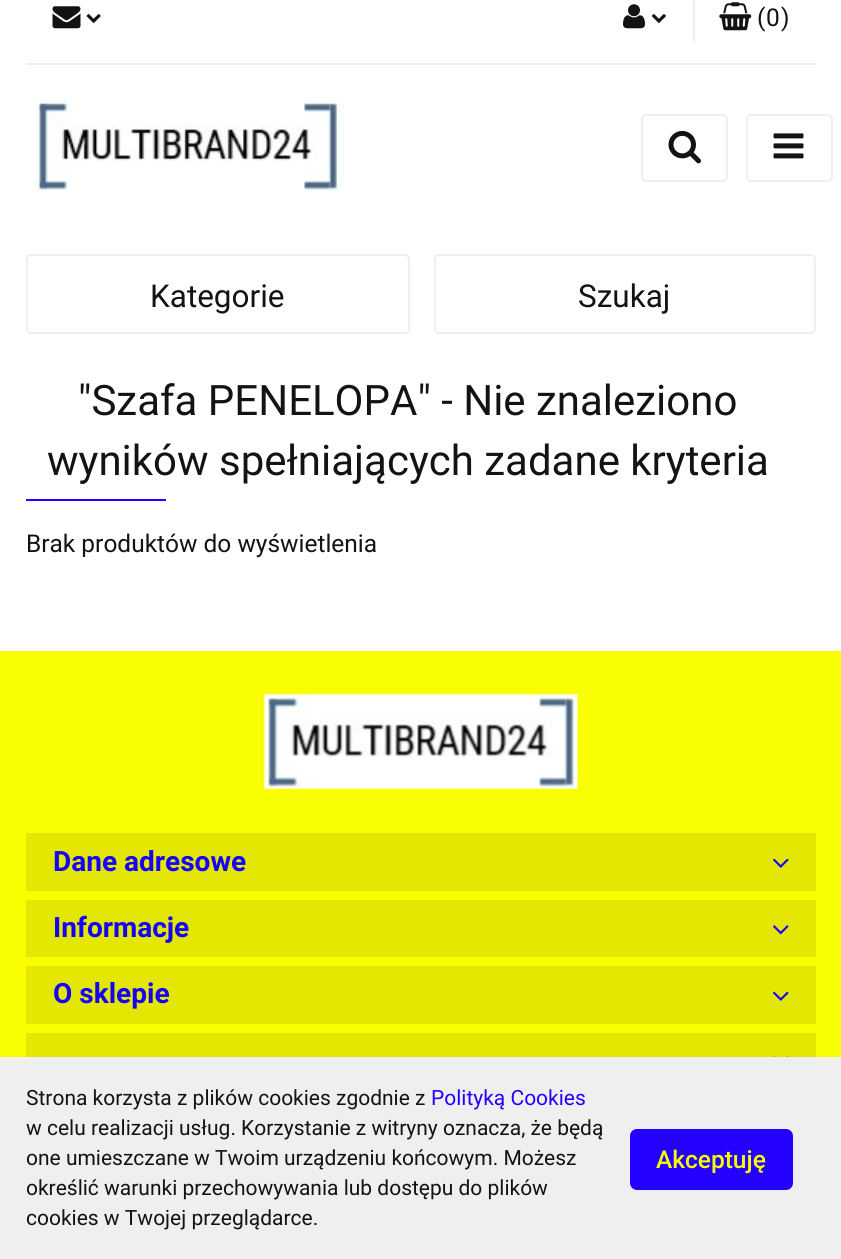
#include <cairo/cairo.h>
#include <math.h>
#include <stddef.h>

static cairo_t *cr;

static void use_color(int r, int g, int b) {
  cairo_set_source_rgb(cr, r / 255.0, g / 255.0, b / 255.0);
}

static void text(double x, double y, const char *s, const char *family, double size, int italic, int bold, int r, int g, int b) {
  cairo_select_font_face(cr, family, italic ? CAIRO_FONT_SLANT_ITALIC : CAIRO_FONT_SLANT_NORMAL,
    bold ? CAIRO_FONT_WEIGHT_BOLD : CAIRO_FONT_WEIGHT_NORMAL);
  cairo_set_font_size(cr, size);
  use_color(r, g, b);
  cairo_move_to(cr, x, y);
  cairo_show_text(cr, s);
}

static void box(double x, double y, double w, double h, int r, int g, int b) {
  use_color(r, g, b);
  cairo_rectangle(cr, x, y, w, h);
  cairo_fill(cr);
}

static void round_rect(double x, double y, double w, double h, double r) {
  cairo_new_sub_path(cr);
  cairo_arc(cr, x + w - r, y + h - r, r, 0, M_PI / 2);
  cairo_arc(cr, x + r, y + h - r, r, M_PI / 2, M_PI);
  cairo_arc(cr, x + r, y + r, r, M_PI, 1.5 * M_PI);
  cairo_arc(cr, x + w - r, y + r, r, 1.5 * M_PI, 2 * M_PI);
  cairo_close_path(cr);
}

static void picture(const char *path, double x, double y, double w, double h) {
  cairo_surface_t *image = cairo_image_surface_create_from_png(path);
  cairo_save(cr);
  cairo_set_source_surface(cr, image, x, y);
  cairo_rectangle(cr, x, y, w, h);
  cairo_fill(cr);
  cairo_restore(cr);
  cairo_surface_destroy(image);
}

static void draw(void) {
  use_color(255, 255, 255);
  cairo_paint(cr);
  box(26, 63, 790, 2, 239, 239, 239);
  picture("img_01.png", 52, 6, 29, 23);
  picture("img_02.png", 86, 14, 15, 9);
  picture("img_03.png", 623, 4, 22, 25);
  picture("img_04.png", 651, 14, 15, 9);
  box(693, 0, 2, 42, 239, 239, 239);
  picture("img_05.png", 719, 2, 33, 29);
  picture("img_06.png", 35, 99, 306, 93);
  round_rect(642, 115, 85, 66, 4);
  cairo_stroke(cr);
  picture("img_07.png", 668, 130, 33, 34);
  round_rect(747, 115, 85, 66, 4);
  cairo_stroke(cr);
  picture("img_08.png", 773, 133, 31, 26);
  round_rect(27, 255, 382, 78, 4);
  cairo_stroke(cr);
  round_rect(435, 255, 380, 78, 4);
  cairo_stroke(cr);
  box(26, 499, 140, 2, 35, 0, 255);
  box(0, 651, 841, 406, 250, 255, 0);
  picture("img_09.png", 263, 693, 315, 97);
  box(26, 833, 790, 58, 227, 231, 2);
  picture("img_10.png", 773, 858, 16, 10);
  box(26, 900, 790, 57, 227, 231, 2);
  picture("img_11.png", 773, 925, 16, 10);
  box(26, 966, 790, 58, 227, 231, 2);
  picture("img_10.png", 773, 991, 16, 10);
  box(26, 1033, 790, 24, 227, 231, 2);
  picture("img_12.png", 773, 1056, 15, 1);
  box(0, 1057, 841, 202, 239, 239, 239);
  use_color(35, 0, 255);
  round_rect(632.5, 1131.5, 158, 56, 4.5);
  cairo_fill_preserve(cr);
  cairo_set_line_width(cr, 5);
  cairo_stroke(cr);
  text(757, 26, "(", "Roboto", 24.5, 0, 0, 19, 19, 19);
  text(766, 26, "0", "Roboto", 24.5, 0, 0, 19, 19, 19);
  text(781, 26, ")", "Roboto", 24.5, 0, 0, 19, 19, 19);
  text(150, 307, "Kategorie", "Roboto", 31.5, 0, 0, 19, 19, 19);
  text(578, 307, "Szukaj", "Roboto", 31.5, 0, 0, 19, 19, 19);
  text(78, 415, "\"Szafa PENELOPA\" - Nie znaleziono", "Roboto", 42, 0, 0, 19, 19, 19);
  text(47, 475, "wyników spełniających zadane kryteria", "Roboto", 42, 0, 0, 19, 19, 19);
  text(26, 552, "Brak produktów do wyświetlenia", "Roboto", 24.5, 0, 0, 19, 19, 19);
  text(53, 871, "Dane adresowe", "Roboto", 28, 0, 1, 21, 0, 255);
  text(53, 937, "Informacje", "Roboto", 28, 0, 1, 21, 0, 255);
  text(53, 1003, "O sklepie", "Roboto", 28, 0, 1, 21, 0, 255);
  text(26, 1105, "Strona korzysta z plików cookies zgodnie z", "Roboto", 21, 0, 0, 19, 19, 19);
  text(431, 1105, "Polityką Cookies", "Roboto", 21, 0, 0, 35, 0, 255);
  text(26, 1135, "w celu realizacji usług. Korzystanie z witryny oznacza, że będą", "Roboto", 21, 0, 0, 19, 19, 19);
  text(26, 1165, "one umieszczane w Twoim urządzeniu końcowym. Możesz", "Roboto", 21, 0, 0, 19, 19, 19);
  text(26, 1195, "określić warunki przechowywania lub dostępu do plików", "Roboto", 21, 0, 0, 19, 19, 19);
  text(26, 1225, "cookies w Twojej przeglądarce.", "Roboto", 21, 0, 0, 19, 19, 19);
  text(656, 1168, "Akceptuję", "Roboto Medium", 24.5, 0, 0, 250, 255, 0);
}

int main(void) {
  cairo_surface_t *surface = cairo_image_surface_create(CAIRO_FORMAT_RGB24, 841, 1259);
  cr = cairo_create(surface);
  cairo_font_options_t *options = cairo_font_options_create();
  cairo_font_options_set_hint_metrics(options, CAIRO_HINT_METRICS_OFF);
  cairo_font_options_set_hint_style(options, CAIRO_HINT_STYLE_NONE);
  cairo_set_font_options(cr, options);
  cairo_set_miter_limit(cr, 4);
  draw();
  cairo_surface_write_to_png(surface, "out.png");
  cairo_font_options_destroy(options);
  cairo_destroy(cr);
  cairo_surface_destroy(surface);
  return 0;
}
